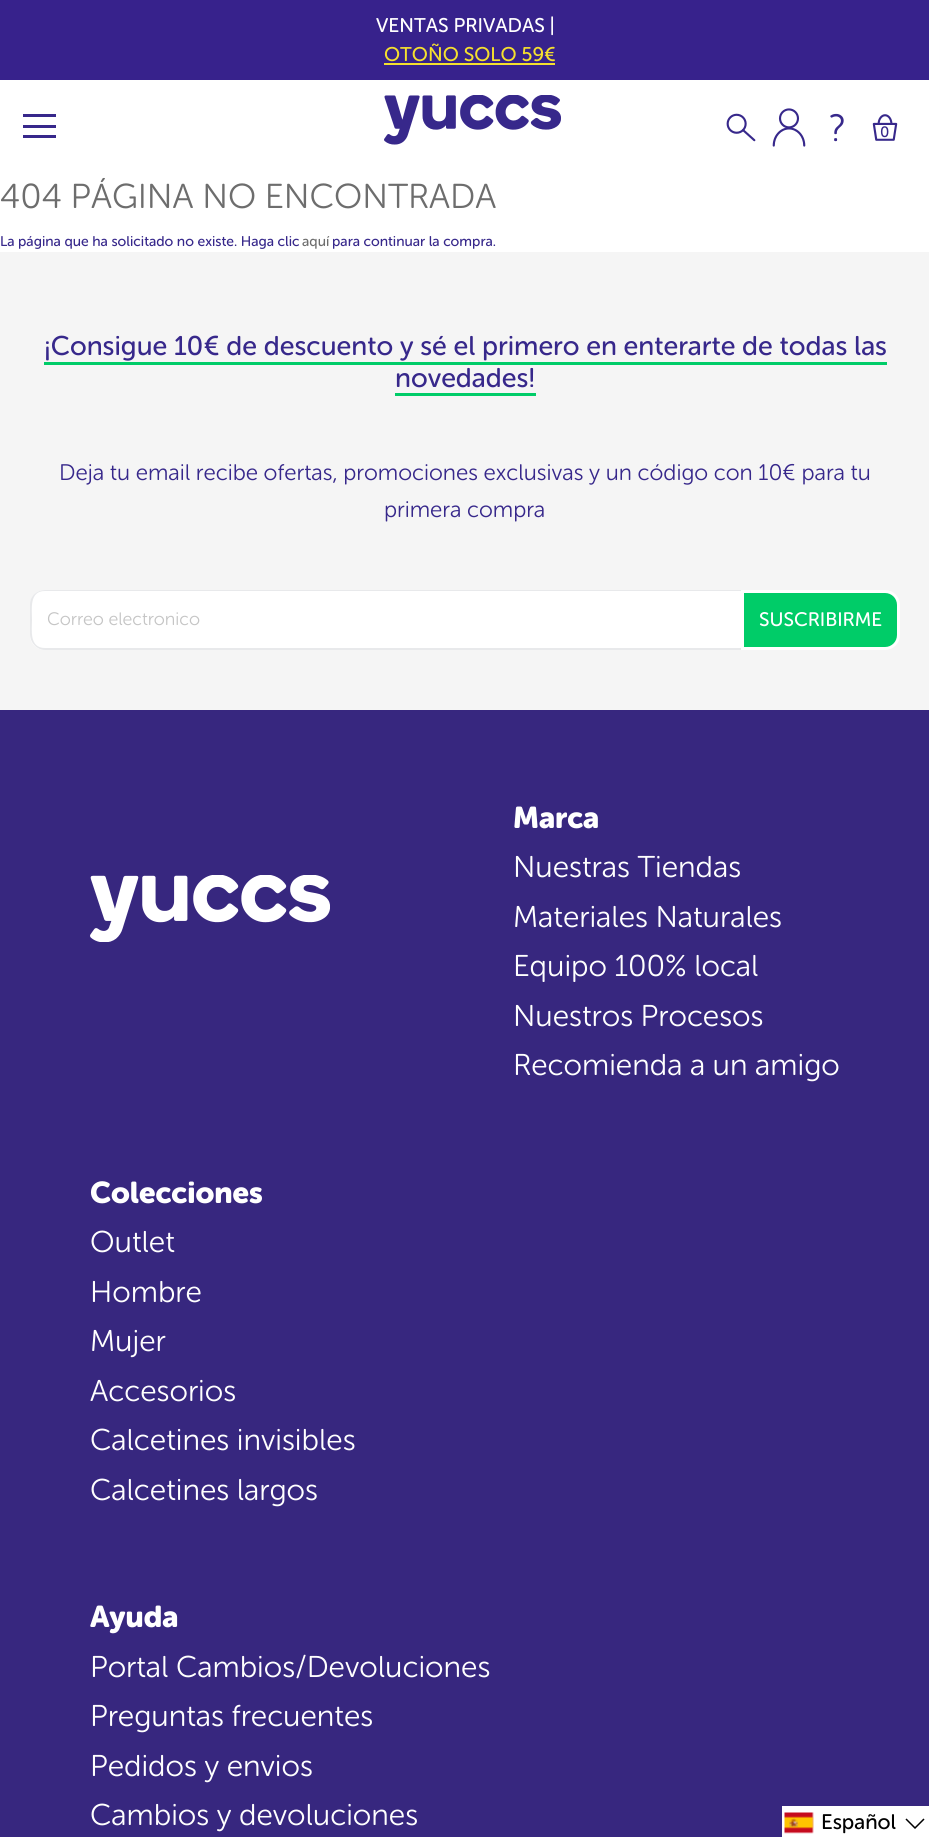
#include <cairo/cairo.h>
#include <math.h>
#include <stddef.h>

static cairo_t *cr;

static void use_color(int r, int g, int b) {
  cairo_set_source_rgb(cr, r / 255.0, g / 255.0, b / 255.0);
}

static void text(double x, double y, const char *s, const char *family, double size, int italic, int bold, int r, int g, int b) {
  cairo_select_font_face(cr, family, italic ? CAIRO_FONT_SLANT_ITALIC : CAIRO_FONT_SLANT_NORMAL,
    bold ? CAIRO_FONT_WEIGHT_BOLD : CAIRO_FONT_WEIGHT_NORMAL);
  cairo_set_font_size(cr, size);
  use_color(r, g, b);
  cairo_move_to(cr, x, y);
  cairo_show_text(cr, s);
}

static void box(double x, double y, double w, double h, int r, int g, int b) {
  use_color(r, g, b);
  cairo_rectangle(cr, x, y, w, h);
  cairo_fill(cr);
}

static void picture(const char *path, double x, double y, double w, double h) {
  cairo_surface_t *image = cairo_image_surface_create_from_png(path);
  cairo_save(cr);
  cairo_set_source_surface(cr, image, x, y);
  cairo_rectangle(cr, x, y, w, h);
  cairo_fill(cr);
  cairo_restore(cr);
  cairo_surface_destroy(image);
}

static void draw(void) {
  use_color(245, 245, 245);
  cairo_paint(cr);
  box(0, 0, 929, 80, 55, 34, 140);
  box(384, 63, 171, 2, 245, 224, 46);
  box(0, 80, 929, 172, 255, 255, 255);
  box(23, 114, 33, 3, 55, 40, 139);
  box(23, 125, 33, 3, 55, 40, 139);
  box(23, 135, 33, 3, 55, 40, 139);
  picture("img_01.png", 384, 95, 177, 50);
  picture("img_02.png", 726, 113, 30, 29);
  picture("img_03.png", 772, 108, 34, 39);
  picture("img_04.png", 830, 113, 14, 29);
  picture("img_05.png", 872, 114, 26, 27);
  box(44, 362, 843, 3, 0, 204, 104);
  box(395, 393, 141, 3, 0, 204, 104);
  use_color(255, 255, 255);
  cairo_new_path(cr);
  cairo_move_to(cr, 45, 590);
  cairo_line_to(cr, 741, 590);
  cairo_line_to(cr, 741, 650);
  cairo_line_to(cr, 45, 650);
  cairo_curve_to(cr, 36.5, 650, 30, 643.5, 30, 635);
  cairo_line_to(cr, 30, 605);
  cairo_curve_to(cr, 30, 596.5, 36.5, 590, 45, 590);
  cairo_close_path(cr);
  cairo_fill(cr);
  use_color(232, 233, 235);
  cairo_set_fill_rule(cr, CAIRO_FILL_RULE_EVEN_ODD);
  cairo_new_path(cr);
  cairo_move_to(cr, 45, 590);
  cairo_line_to(cr, 741, 590);
  cairo_line_to(cr, 741, 650);
  cairo_line_to(cr, 45, 650);
  cairo_curve_to(cr, 37, 650, 30, 643, 30, 634);
  cairo_line_to(cr, 30, 604);
  cairo_curve_to(cr, 30, 596, 37, 590, 45, 590);
  cairo_close_path(cr);
  cairo_move_to(cr, 45, 591);
  cairo_line_to(cr, 741, 591);
  cairo_line_to(cr, 741, 648);
  cairo_line_to(cr, 45, 648);
  cairo_curve_to(cr, 29, 648, 32, 630, 32, 620);
  cairo_curve_to(cr, 32, 609, 29, 591, 45, 591);
  cairo_close_path(cr);
  cairo_fill(cr);
  use_color(0, 204, 104);
  cairo_new_path(cr);
  cairo_move_to(cr, 742.5, 591.5);
  cairo_line_to(cr, 885, 591.5);
  cairo_curve_to(cr, 892.5, 591.5, 898.5, 597.5, 898.5, 605);
  cairo_line_to(cr, 898.5, 635);
  cairo_curve_to(cr, 898.5, 642.5, 892.5, 648.5, 885, 648.5);
  cairo_line_to(cr, 742.5, 648.5);
  cairo_close_path(cr);
  cairo_fill_preserve(cr);
  use_color(255, 255, 255);
  cairo_set_line_width(cr, 3);
  cairo_stroke(cr);
  box(0, 710, 929, 1127, 55, 39, 127);
  picture("img_06.png", 90, 875, 240, 67);
  box(782, 1806, 147, 31, 255, 255, 255);
  picture("img_07.png", 784, 1812, 30, 22);
  cairo_new_path(cr);
  cairo_move_to(cr, 906, 1819);
  cairo_line_to(cr, 915, 1828);
  cairo_line_to(cr, 924, 1819);
  use_color(0, 0, 0);
  cairo_set_line_width(cr, 1.5);
  cairo_stroke(cr);
  text(376, 32, "VENTAS PRIVADAS |", "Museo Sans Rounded", 19.75, 0, 0, 255, 255, 255);
  text(384, 61, "OTOÑO SOLO 59€", "Museo Sans Rounded", 19.75, 0, 0, 245, 224, 46);
  text(880, 137, "0", "Museo Sans Rounded", 15, 0, 0, 55, 40, 139);
  text(0, 208, "404 PÁGINA NO ENCONTRADA", "Museo Sans Rounded Light", 34.5, 0, 0, 109, 109, 109);
  text(0, 246, "La página que ha solicitado no existe. Haga clic", "Museo Sans Rounded", 14.1, 0, 0, 55, 40, 139);
  text(302, 246, "aquí", "Museo Sans Rounded", 14.1, 0, 0, 109, 109, 109);
  text(332, 246, "para continuar la compra.", "Museo Sans Rounded", 14.1, 0, 0, 55, 40, 139);
  text(44, 355, "¡Consigue 10€ de descuento y sé el primero en enterarte de todas las", "Museo Sans Rounded", 27, 0, 0, 55, 40, 139);
  text(395, 387, "novedades!", "Museo Sans Rounded", 27, 0, 0, 55, 40, 139);
  text(59, 480, "Deja tu email recibe ofertas, promociones exclusivas y un código con 10€ para tu", "Museo Sans Rounded Light", 22.5, 0, 0, 55, 40, 139);
  text(384, 517, "primera compra", "Museo Sans Rounded Light", 22.5, 0, 0, 55, 40, 139);
  text(47, 625, "Correo electronico", "Museo Sans Rounded Light", 18, 0, 0, 197, 197, 197);
  text(759, 626, "SUSCRIBIRME", "Museo Sans Rounded", 19.5, 0, 0, 255, 255, 255);
  text(513, 828, "Marca", "Museo Sans Rounded", 30, 0, 1, 255, 255, 255);
  text(513, 877, "Nuestras Tiendas", "Museo Sans Rounded Light", 30, 0, 0, 255, 255, 255);
  text(513, 927, "Materiales Naturales", "Museo Sans Rounded Light", 30, 0, 0, 255, 255, 255);
  text(513, 976, "Equipo 100% local", "Museo Sans Rounded Light", 30, 0, 0, 255, 255, 255);
  text(513, 1026, "Nuestros Procesos", "Museo Sans Rounded Light", 30, 0, 0, 255, 255, 255);
  text(513, 1075, "Recomienda a un amigo", "Museo Sans Rounded Light", 30, 0, 0, 255, 255, 255);
  text(90, 1203, "Colecciones", "Museo Sans Rounded", 30, 0, 1, 255, 255, 255);
  text(90, 1252, "Outlet", "Museo Sans Rounded Light", 30, 0, 0, 255, 255, 255);
  text(90, 1302, "Hombre", "Museo Sans Rounded Light", 30, 0, 0, 255, 255, 255);
  text(90, 1351, "Mujer", "Museo Sans Rounded Light", 30, 0, 0, 255, 255, 255);
  text(90, 1401, "Accesorios", "Museo Sans Rounded Light", 30, 0, 0, 255, 255, 255);
  text(90, 1450, "Calcetines invisibles", "Museo Sans Rounded Light", 30, 0, 0, 255, 255, 255);
  text(90, 1500, "Calcetines largos", "Museo Sans Rounded Light", 30, 0, 0, 255, 255, 255);
  text(90, 1627, "Ayuda", "Museo Sans Rounded", 30, 0, 1, 255, 255, 255);
  text(90, 1677, "Portal Cambios/Devoluciones", "Museo Sans Rounded Light", 30, 0, 0, 255, 255, 255);
  text(90, 1726, "Preguntas frecuentes", "Museo Sans Rounded Light", 30, 0, 0, 255, 255, 255);
  text(90, 1776, "Pedidos y envios", "Museo Sans Rounded Light", 30, 0, 0, 255, 255, 255);
  text(90, 1825, "Cambios y devoluciones", "Museo Sans Rounded Light", 30, 0, 0, 255, 255, 255);
  text(821, 1829, "Español", "Museo Sans Rounded", 21, 0, 0, 0, 0, 0);
}

int main(void) {
  cairo_surface_t *surface = cairo_image_surface_create(CAIRO_FORMAT_RGB24, 929, 1837);
  cr = cairo_create(surface);
  cairo_font_options_t *options = cairo_font_options_create();
  cairo_font_options_set_hint_metrics(options, CAIRO_HINT_METRICS_OFF);
  cairo_font_options_set_hint_style(options, CAIRO_HINT_STYLE_NONE);
  cairo_set_font_options(cr, options);
  cairo_set_miter_limit(cr, 4);
  draw();
  cairo_surface_write_to_png(surface, "out.png");
  cairo_font_options_destroy(options);
  cairo_destroy(cr);
  cairo_surface_destroy(surface);
  return 0;
}
